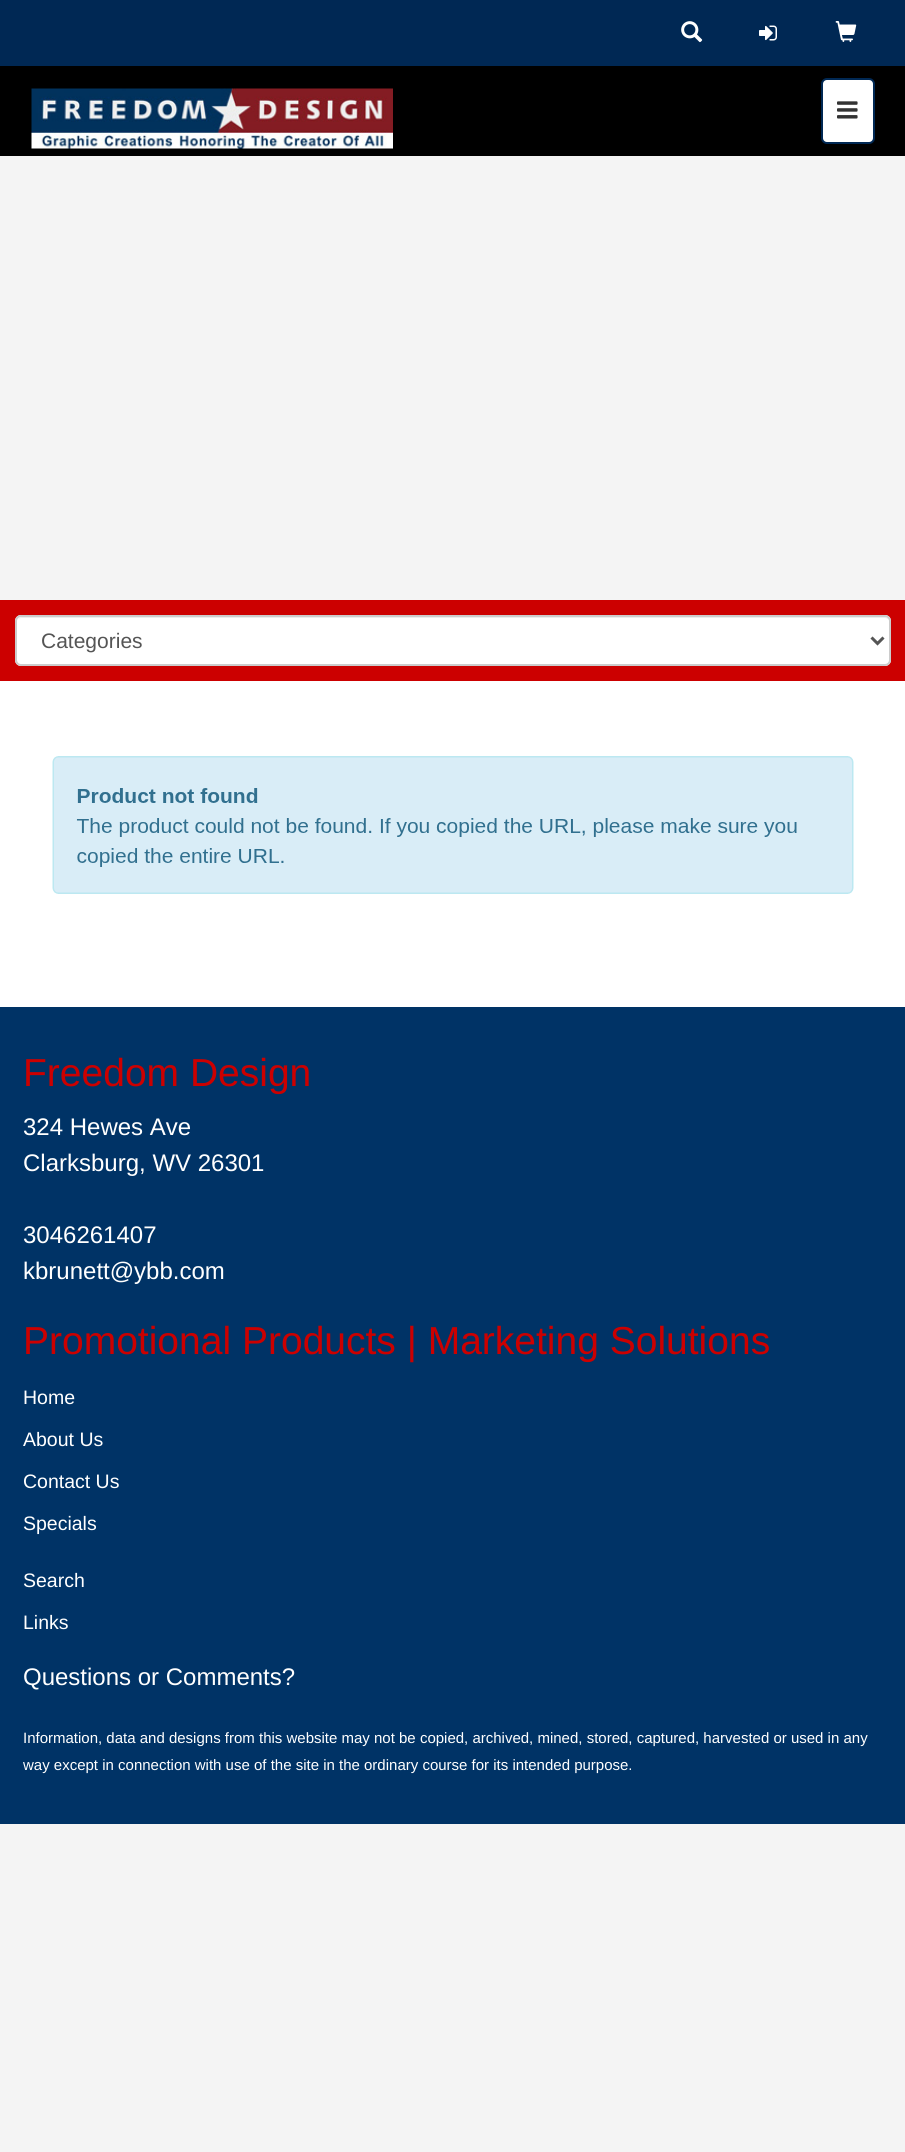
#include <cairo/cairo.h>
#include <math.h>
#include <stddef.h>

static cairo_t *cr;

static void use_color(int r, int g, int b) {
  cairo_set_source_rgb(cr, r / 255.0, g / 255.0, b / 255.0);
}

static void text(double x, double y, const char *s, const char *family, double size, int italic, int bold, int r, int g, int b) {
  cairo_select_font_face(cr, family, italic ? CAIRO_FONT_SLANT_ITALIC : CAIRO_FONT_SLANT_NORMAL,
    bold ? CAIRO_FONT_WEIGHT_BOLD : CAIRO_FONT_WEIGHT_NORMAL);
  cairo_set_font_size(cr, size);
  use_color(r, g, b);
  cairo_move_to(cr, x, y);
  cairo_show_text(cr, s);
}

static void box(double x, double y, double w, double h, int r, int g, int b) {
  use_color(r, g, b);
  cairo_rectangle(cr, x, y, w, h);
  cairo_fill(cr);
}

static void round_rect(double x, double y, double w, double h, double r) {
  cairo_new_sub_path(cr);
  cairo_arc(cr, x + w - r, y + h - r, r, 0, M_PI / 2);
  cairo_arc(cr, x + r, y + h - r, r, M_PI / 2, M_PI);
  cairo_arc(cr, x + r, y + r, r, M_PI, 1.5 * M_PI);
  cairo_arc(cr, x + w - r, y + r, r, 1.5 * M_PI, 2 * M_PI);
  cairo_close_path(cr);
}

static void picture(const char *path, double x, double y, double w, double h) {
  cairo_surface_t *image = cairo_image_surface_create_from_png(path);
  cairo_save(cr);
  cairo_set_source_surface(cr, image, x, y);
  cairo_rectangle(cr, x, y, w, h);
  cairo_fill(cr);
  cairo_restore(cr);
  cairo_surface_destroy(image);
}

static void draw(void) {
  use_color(244, 244, 244);
  cairo_paint(cr);
  box(0, 0, 905, 66, 0, 40, 84);
  picture("img_01.png", 681, 21, 22, 22);
  picture("img_02.png", 759, 25, 18, 16);
  picture("img_03.png", 835, 21, 22, 21);
  box(0, 66, 905, 90, 0, 0, 0);
  picture("img_04.png", 31, 88, 362, 61);
  use_color(255, 255, 255);
  round_rect(822, 79, 52, 64, 5);
  cairo_fill_preserve(cr);
  use_color(0, 40, 84);
  cairo_stroke(cr);
  picture("img_05.png", 837, 101, 21, 18);
  box(0, 681, 905, 326, 255, 255, 255);
  box(0, 600, 905, 81, 204, 0, 0);
  use_color(255, 255, 255);
  round_rect(15, 615, 876, 51, 6);
  cairo_fill(cr);
  use_color(236, 236, 236);
  cairo_new_path(cr);
  cairo_move_to(cr, 21, 618);
  cairo_line_to(cr, 885, 618);
  cairo_curve_to(cr, 887, 618, 890, 620, 890, 622);
  cairo_curve_to(cr, 890, 619, 888, 617, 885, 617);
  cairo_line_to(cr, 22, 617);
  cairo_curve_to(cr, 20, 617, 19, 618, 18, 619);
  cairo_close_path(cr);
  cairo_fill(cr);
  round_rect(16, 616, 874, 49, 5);
  use_color(204, 204, 204);
  cairo_stroke(cr);
  cairo_new_path(cr);
  cairo_move_to(cr, 871.5, 637.5);
  cairo_line_to(cr, 877.5, 643.5);
  cairo_line_to(cr, 883.5, 637.5);
  use_color(85, 85, 85);
  cairo_set_line_width(cr, 3);
  cairo_stroke(cr);
  picture("img_06.png", 52, 756, 802, 138);
  box(0, 1007, 905, 817, 0, 51, 102);
  text(41, 648, "Categories", "Liberation Sans", 21, 0, 0, 85, 85, 85);
  text(23, 1086, "Freedom Design", "Liberation Sans", 39, 0, 0, 204, 0, 0);
  text(23, 1135, "324 Hewes Ave", "Liberation Sans", 24, 0, 0, 255, 255, 255);
  text(23, 1171, "Clarksburg, WV 26301", "Liberation Sans", 24, 0, 0, 255, 255, 255);
  text(23, 1243, "3046261407", "Liberation Sans", 24, 0, 0, 255, 255, 255);
  text(23, 1279, "kbrunett@ybb.com", "Liberation Sans", 24, 0, 0, 255, 255, 255);
  text(23, 1354, "Promotional Products | Marketing Solutions", "Liberation Sans", 39, 0, 0, 204, 0, 0);
  text(23, 1404, "Home", "Liberation Sans", 19.5, 0, 0, 255, 255, 255);
  text(23, 1446, "About Us", "Liberation Sans", 19.5, 0, 0, 255, 255, 255);
  text(23, 1488, "Contact Us", "Liberation Sans", 19.5, 0, 0, 255, 255, 255);
  text(23, 1530, "Specials", "Liberation Sans", 19.5, 0, 0, 255, 255, 255);
  text(23, 1587, "Search", "Liberation Sans", 19.5, 0, 0, 255, 255, 255);
  text(23, 1629, "Links", "Liberation Sans", 19.5, 0, 0, 255, 255, 255);
  text(23, 1685, "Questions or Comments?", "Liberation Sans", 24, 0, 0, 255, 255, 255);
  text(23, 1743, "Information, data and designs from this website may not be copied, archived, mined, stored, captured, harvested or used in any", "Liberation Sans", 15, 0, 0, 255, 255, 255);
  text(23, 1770, "way except in connection with use of the site in the ordinary course for its intended purpose.", "Liberation Sans", 15, 0, 0, 255, 255, 255);
}

int main(void) {
  cairo_surface_t *surface = cairo_image_surface_create(CAIRO_FORMAT_RGB24, 905, 2152);
  cr = cairo_create(surface);
  cairo_font_options_t *options = cairo_font_options_create();
  cairo_font_options_set_hint_metrics(options, CAIRO_HINT_METRICS_OFF);
  cairo_font_options_set_hint_style(options, CAIRO_HINT_STYLE_NONE);
  cairo_set_font_options(cr, options);
  cairo_set_miter_limit(cr, 4);
  draw();
  cairo_surface_write_to_png(surface, "out.png");
  cairo_font_options_destroy(options);
  cairo_destroy(cr);
  cairo_surface_destroy(surface);
  return 0;
}
